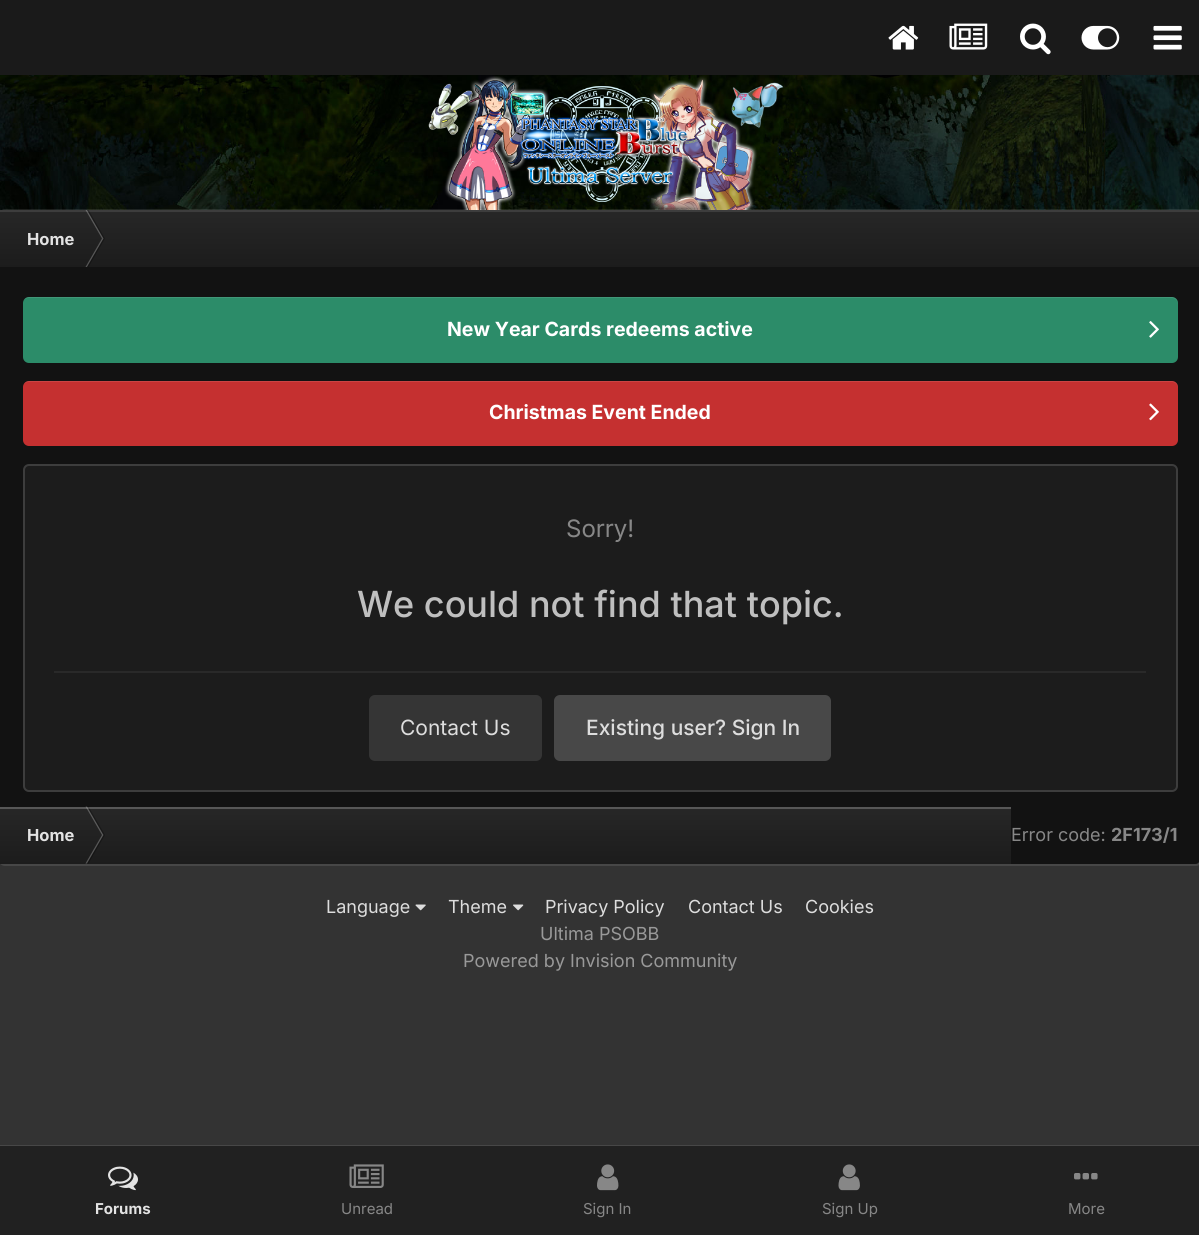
#include <cairo/cairo.h>
#include <math.h>
#include <stddef.h>

static cairo_t *cr;

static void use_color(int r, int g, int b) {
  cairo_set_source_rgb(cr, r / 255.0, g / 255.0, b / 255.0);
}

static void text(double x, double y, const char *s, const char *family, double size, int italic, int bold, int r, int g, int b) {
  cairo_select_font_face(cr, family, italic ? CAIRO_FONT_SLANT_ITALIC : CAIRO_FONT_SLANT_NORMAL,
    bold ? CAIRO_FONT_WEIGHT_BOLD : CAIRO_FONT_WEIGHT_NORMAL);
  cairo_set_font_size(cr, size);
  use_color(r, g, b);
  cairo_move_to(cr, x, y);
  cairo_show_text(cr, s);
}

static void box(double x, double y, double w, double h, int r, int g, int b) {
  use_color(r, g, b);
  cairo_rectangle(cr, x, y, w, h);
  cairo_fill(cr);
}

static void round_rect(double x, double y, double w, double h, double r) {
  cairo_new_sub_path(cr);
  cairo_arc(cr, x + w - r, y + h - r, r, 0, M_PI / 2);
  cairo_arc(cr, x + r, y + h - r, r, M_PI / 2, M_PI);
  cairo_arc(cr, x + r, y + r, r, M_PI, 1.5 * M_PI);
  cairo_arc(cr, x + w - r, y + r, r, 1.5 * M_PI, 2 * M_PI);
  cairo_close_path(cr);
}

static void picture(const char *path, double x, double y, double w, double h) {
  cairo_surface_t *image = cairo_image_surface_create_from_png(path);
  cairo_save(cr);
  cairo_set_source_surface(cr, image, x, y);
  cairo_rectangle(cr, x, y, w, h);
  cairo_fill(cr);
  cairo_restore(cr);
  cairo_surface_destroy(image);
}

static void draw(void) {
  cairo_pattern_t *gradient;
  use_color(51, 51, 51);
  cairo_paint(cr);
  box(0, 0, 1199, 75, 26, 26, 26);
  picture("img_01.png", 888, 25, 31, 25);
  picture("img_02.png", 949, 23, 39, 27);
  picture("img_03.png", 1020, 23, 31, 32);
  picture("img_04.png", 1081, 25, 39, 25);
  picture("img_05.png", 1153, 25, 29, 25);
  picture("img_06.png", 0, 75, 1199, 135);
  round_rect(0, 210, 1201, 655, 5);
  cairo_set_source_rgba(cr, 1, 1, 1, 0.1);
  cairo_stroke(cr);
  picture("img_07.png", 428, 76, 356, 134);
  use_color(18, 18, 18);
  round_rect(0, 210, 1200, 654, 5);
  cairo_fill(cr);
  gradient = cairo_pattern_create_linear(600, 210, 600, 267);
  cairo_pattern_add_color_stop_rgba(gradient, 0, 0.153, 0.153, 0.153, 1);
  cairo_pattern_add_color_stop_rgba(gradient, 1, 0.11, 0.11, 0.11, 1);
  cairo_set_source(cr, gradient);
  cairo_pattern_destroy(gradient);
  cairo_rectangle(cr, 0, 212, 1199, 55);
  cairo_fill(cr);
  box(0, 210, 1199, 2, 61, 61, 61);
  cairo_set_source_rgba(cr, 1, 1, 1, 0.25);
  cairo_new_path(cr);
  cairo_move_to(cr, 85.5, 210);
  cairo_line_to(cr, 87, 210);
  cairo_line_to(cr, 103.5, 238.5);
  cairo_line_to(cr, 102, 238.5);
  cairo_close_path(cr);
  cairo_fill(cr);
  cairo_set_source_rgba(cr, 0, 0, 0, 0.3);
  cairo_new_path(cr);
  cairo_move_to(cr, 87, 210);
  cairo_line_to(cr, 88.5, 210);
  cairo_line_to(cr, 105, 238.5);
  cairo_line_to(cr, 103.5, 238.5);
  cairo_close_path(cr);
  cairo_fill(cr);
  cairo_set_source_rgba(cr, 1, 1, 1, 0.25);
  cairo_new_path(cr);
  cairo_move_to(cr, 85.5, 267);
  cairo_line_to(cr, 87, 267);
  cairo_line_to(cr, 103.5, 238.5);
  cairo_line_to(cr, 102, 238.5);
  cairo_close_path(cr);
  cairo_fill(cr);
  cairo_set_source_rgba(cr, 0, 0, 0, 0.3);
  cairo_new_path(cr);
  cairo_move_to(cr, 87, 267);
  cairo_line_to(cr, 88.5, 267);
  cairo_line_to(cr, 105, 238.5);
  cairo_line_to(cr, 103.5, 238.5);
  cairo_close_path(cr);
  cairo_fill(cr);
  use_color(44, 140, 105);
  round_rect(23, 297, 1155, 66, 6);
  cairo_fill(cr);
  cairo_set_source_rgba(cr, 1, 1, 1, 0.1);
  cairo_new_path(cr);
  cairo_move_to(cr, 28, 298);
  cairo_line_to(cr, 1172, 298);
  cairo_curve_to(cr, 1175, 298, 1178, 301, 1178, 304);
  cairo_line_to(cr, 1178, 303);
  cairo_curve_to(cr, 1178, 300, 1175, 297, 1172, 297);
  cairo_line_to(cr, 29, 297);
  cairo_curve_to(cr, 27, 297, 25, 298, 24, 300);
  cairo_curve_to(cr, 25, 299, 27, 298, 28, 298);
  cairo_close_path(cr);
  cairo_fill(cr);
  picture("img_08.png", 1149, 321, 10, 17);
  use_color(197, 48, 48);
  round_rect(23, 381, 1155, 65, 6);
  cairo_fill(cr);
  cairo_set_source_rgba(cr, 1, 1, 1, 0.1);
  cairo_new_path(cr);
  cairo_move_to(cr, 28, 382);
  cairo_line_to(cr, 1172, 382);
  cairo_curve_to(cr, 1175, 382, 1178, 385, 1178, 388);
  cairo_line_to(cr, 1178, 387);
  cairo_curve_to(cr, 1178, 384, 1175, 381, 1172, 381);
  cairo_line_to(cr, 29, 381);
  cairo_curve_to(cr, 27, 381, 25, 382, 24, 384);
  cairo_curve_to(cr, 25, 383, 27, 382, 28, 382);
  cairo_close_path(cr);
  cairo_fill(cr);
  picture("img_09.png", 1149, 403, 10, 18);
  use_color(28, 28, 28);
  round_rect(24, 465, 1153, 326, 5);
  cairo_fill_preserve(cr);
  use_color(61, 61, 61);
  cairo_stroke(cr);
  box(54, 671, 1092, 2, 41, 41, 41);
  use_color(53, 53, 53);
  round_rect(369, 695, 173, 66, 6);
  cairo_fill(cr);
  use_color(72, 72, 72);
  round_rect(554, 695, 277, 66, 6);
  cairo_fill(cr);
  gradient = cairo_pattern_create_linear(506, 807, 506, 864);
  cairo_pattern_add_color_stop_rgba(gradient, 0, 0.153, 0.153, 0.153, 1);
  cairo_pattern_add_color_stop_rgba(gradient, 1, 0.11, 0.11, 0.11, 1);
  cairo_set_source(cr, gradient);
  cairo_pattern_destroy(gradient);
  cairo_rectangle(cr, 0, 809, 1011, 55);
  cairo_fill(cr);
  box(0, 807, 1011, 2, 61, 61, 61);
  cairo_set_source_rgba(cr, 1, 1, 1, 0.25);
  cairo_new_path(cr);
  cairo_move_to(cr, 85.5, 806.5);
  cairo_line_to(cr, 87, 806.5);
  cairo_line_to(cr, 103.5, 835);
  cairo_line_to(cr, 102, 835);
  cairo_close_path(cr);
  cairo_fill(cr);
  cairo_set_source_rgba(cr, 0, 0, 0, 0.3);
  cairo_new_path(cr);
  cairo_move_to(cr, 87, 806.5);
  cairo_line_to(cr, 88.5, 806.5);
  cairo_line_to(cr, 105, 835);
  cairo_line_to(cr, 103.5, 835);
  cairo_close_path(cr);
  cairo_fill(cr);
  cairo_set_source_rgba(cr, 0.749, 0.749, 0.749, 0.2);
  cairo_rectangle(cr, 0, 807, 1011, 2);
  cairo_fill(cr);
  cairo_set_source_rgba(cr, 1, 1, 1, 0.25);
  cairo_new_path(cr);
  cairo_move_to(cr, 85.5, 863.5);
  cairo_line_to(cr, 87, 863.5);
  cairo_line_to(cr, 103.5, 835);
  cairo_line_to(cr, 102, 835);
  cairo_close_path(cr);
  cairo_fill(cr);
  cairo_set_source_rgba(cr, 0, 0, 0, 0.3);
  cairo_new_path(cr);
  cairo_move_to(cr, 87, 863.5);
  cairo_line_to(cr, 88.5, 863.5);
  cairo_line_to(cr, 105, 835);
  cairo_line_to(cr, 103.5, 835);
  cairo_close_path(cr);
  cairo_fill(cr);
  picture("img_10.png", 415, 904, 11, 7);
  picture("img_11.png", 513, 904, 11, 7);
  box(0, 1145, 1199, 1, 71, 71, 71);
  box(0, 1146, 1199, 89, 33, 33, 33);
  picture("img_12.png", 108, 1166, 30, 25);
  picture("img_13.png", 349, 1164, 35, 24);
  picture("img_14.png", 597, 1164, 22, 27);
  picture("img_15.png", 838, 1164, 22, 27);
  picture("img_16.png", 1074, 1173, 24, 7);
  text(27, 245, "Home", "Inter", 16.5, 0, 1, 227, 227, 227);
  text(447, 336, "New Year Cards redeems active", "Inter", 19.5, 0, 1, 255, 255, 255);
  text(489, 419, "Christmas Event Ended", "Inter", 19.5, 0, 1, 255, 255, 255);
  text(566, 537, "Sorry!", "Inter", 24, 0, 0, 135, 135, 135);
  text(357, 617, "We could not find that topic.", "Inter Medium", 36, 0, 0, 191, 191, 191);
  text(400, 735, "Contact Us", "Inter", 21, 0, 0, 221, 221, 221);
  text(586, 735, "Existing user? Sign In", "Inter Medium", 21, 0, 0, 221, 221, 221);
  text(1011, 841, "Error code:", "Inter", 18, 0, 0, 135, 135, 135);
  text(1111, 841, "2F173/1", "Inter", 18, 0, 1, 135, 135, 135);
  text(27, 841, "Home", "Inter", 16.5, 0, 1, 227, 227, 227);
  text(326, 913, "Language", "Inter", 18, 0, 0, 221, 221, 221);
  text(448, 913, "Theme", "Inter", 18, 0, 0, 221, 221, 221);
  text(545, 913, "Privacy Policy", "Inter", 18, 0, 0, 221, 221, 221);
  text(688, 913, "Contact Us", "Inter", 18, 0, 0, 221, 221, 221);
  text(805, 913, "Cookies", "Inter", 18, 0, 0, 221, 221, 221);
  text(540, 940, "Ultima PSOBB", "Inter", 18, 0, 0, 153, 153, 153);
  text(463, 967, "Powered by Invision Community", "Inter", 18, 0, 0, 153, 153, 153);
  text(95, 1214, "Forums", "Inter", 15, 0, 1, 227, 227, 227);
  text(341, 1214, "Unread", "Inter", 15, 0, 0, 135, 135, 135);
  text(583, 1214, "Sign In", "Inter", 15, 0, 0, 135, 135, 135);
  text(822, 1214, "Sign Up", "Inter", 15, 0, 0, 135, 135, 135);
  text(1068, 1214, "More", "Inter", 15, 0, 0, 135, 135, 135);
}

int main(void) {
  cairo_surface_t *surface = cairo_image_surface_create(CAIRO_FORMAT_RGB24, 1199, 1235);
  cr = cairo_create(surface);
  cairo_font_options_t *options = cairo_font_options_create();
  cairo_font_options_set_hint_metrics(options, CAIRO_HINT_METRICS_OFF);
  cairo_font_options_set_hint_style(options, CAIRO_HINT_STYLE_NONE);
  cairo_set_font_options(cr, options);
  cairo_set_miter_limit(cr, 4);
  draw();
  cairo_surface_write_to_png(surface, "out.png");
  cairo_font_options_destroy(options);
  cairo_destroy(cr);
  cairo_surface_destroy(surface);
  return 0;
}
